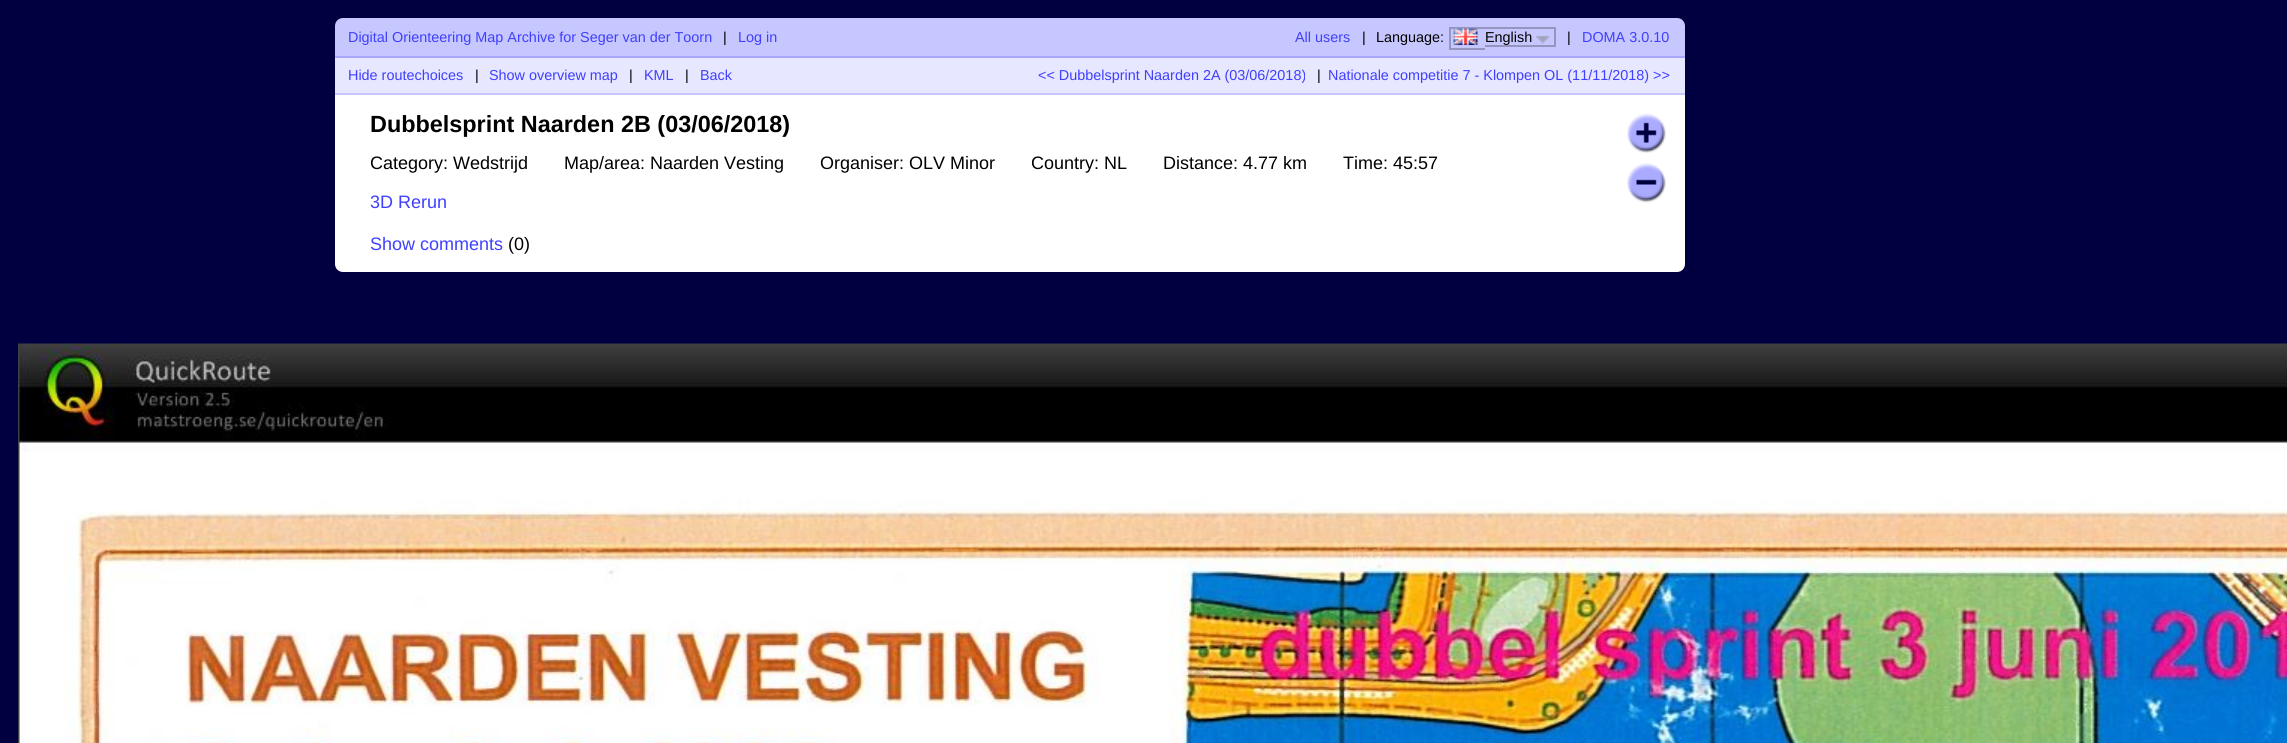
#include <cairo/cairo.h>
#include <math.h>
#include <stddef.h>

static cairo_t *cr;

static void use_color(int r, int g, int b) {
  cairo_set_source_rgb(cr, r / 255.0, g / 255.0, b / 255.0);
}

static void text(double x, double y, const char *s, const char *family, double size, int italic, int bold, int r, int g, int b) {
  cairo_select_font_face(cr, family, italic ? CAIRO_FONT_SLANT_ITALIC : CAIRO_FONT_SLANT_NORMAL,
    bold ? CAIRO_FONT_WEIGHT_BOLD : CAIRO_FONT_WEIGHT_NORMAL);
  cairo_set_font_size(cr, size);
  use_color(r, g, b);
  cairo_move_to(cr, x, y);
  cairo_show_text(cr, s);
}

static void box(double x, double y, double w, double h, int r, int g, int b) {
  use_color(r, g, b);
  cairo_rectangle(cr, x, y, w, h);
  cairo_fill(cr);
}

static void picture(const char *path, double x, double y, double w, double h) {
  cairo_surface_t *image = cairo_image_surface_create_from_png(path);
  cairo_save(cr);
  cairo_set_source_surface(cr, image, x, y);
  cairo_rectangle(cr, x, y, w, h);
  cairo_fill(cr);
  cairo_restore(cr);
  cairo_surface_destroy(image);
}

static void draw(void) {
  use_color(0, 0, 64);
  cairo_paint(cr);
  use_color(199, 199, 255);
  cairo_new_path(cr);
  cairo_move_to(cr, 343, 18);
  cairo_line_to(cr, 1677, 18);
  cairo_curve_to(cr, 1681.5, 18, 1685, 21.5, 1685, 26);
  cairo_line_to(cr, 1685, 56);
  cairo_line_to(cr, 335, 56);
  cairo_line_to(cr, 335, 26);
  cairo_curve_to(cr, 335, 21.5, 338.5, 18, 343, 18);
  cairo_close_path(cr);
  cairo_fill(cr);
  box(1449, 27, 107, 2, 149, 149, 191);
  picture("img_01.png", 1453, 28, 25, 17);
  box(1449, 48, 36, 2, 149, 149, 191);
  box(1449, 27, 2, 23, 149, 149, 191);
  box(1554, 27, 2, 20, 149, 149, 191);
  box(1485, 45, 71, 2, 149, 149, 191);
  picture("img_02.png", 1536, 35, 14, 9);
  box(335, 58, 1350, 35, 231, 231, 255);
  box(335, 56, 1350, 2, 167, 167, 255);
  box(335, 93, 1350, 2, 199, 199, 255);
  use_color(255, 255, 255);
  cairo_new_path(cr);
  cairo_move_to(cr, 335, 95);
  cairo_line_to(cr, 1685, 95);
  cairo_line_to(cr, 1685, 264);
  cairo_curve_to(cr, 1685, 268.5, 1681.5, 272, 1677, 272);
  cairo_line_to(cr, 343, 272);
  cairo_curve_to(cr, 338.5, 272, 335, 268.5, 335, 264);
  cairo_close_path(cr);
  cairo_fill(cr);
  picture("img_03.png", 1627, 113, 39, 40);
  picture("img_04.png", 1627, 163, 39, 40);
  picture("img_05.png", 18, 343, 2269, 400);
  text(348, 42, "Digital Orienteering Map Archive for Seger van der Toorn", "Liberation Sans", 14.4, 0, 0, 63, 63, 255);
  text(723, 42, "|", "Liberation Sans", 14.4, 0, 0, 0, 0, 0);
  text(738, 42, "Log in", "Liberation Sans", 14.4, 0, 0, 63, 63, 255);
  text(1295, 42, "All users", "Liberation Sans", 14.4, 0, 0, 63, 63, 255);
  text(1362, 42, "|", "Liberation Sans", 14.4, 0, 0, 0, 0, 0);
  text(1376, 42, "Language:", "Liberation Sans", 14.4, 0, 0, 0, 0, 0);
  text(1485, 42, "English", "Liberation Sans", 14.4, 0, 0, 0, 0, 0);
  text(1567, 42, "|", "Liberation Sans", 14.4, 0, 0, 0, 0, 0);
  text(1582, 42, "DOMA 3.0.10", "Liberation Sans", 14.4, 0, 0, 63, 63, 255);
  text(348, 80, "Hide routechoices", "Liberation Sans", 14.4, 0, 0, 63, 63, 255);
  text(475, 80, "|", "Liberation Sans", 14.4, 0, 0, 0, 0, 0);
  text(489, 80, "Show overview map", "Liberation Sans", 14.4, 0, 0, 63, 63, 255);
  text(629, 80, "|", "Liberation Sans", 14.4, 0, 0, 0, 0, 0);
  text(644, 80, "KML", "Liberation Sans", 14.4, 0, 0, 63, 63, 255);
  text(685, 80, "|", "Liberation Sans", 14.4, 0, 0, 0, 0, 0);
  text(700, 80, "Back", "Liberation Sans", 14.4, 0, 0, 63, 63, 255);
  text(1038, 80, "<< Dubbelsprint Naarden 2A (03/06/2018)", "Liberation Sans", 14.4, 0, 0, 63, 63, 255);
  text(1317, 80, "|", "Liberation Sans", 14.4, 0, 0, 0, 0, 0);
  text(1328, 80, "Nationale competitie 7 - Klompen OL (11/11/2018) >>", "Liberation Sans", 14.4, 0, 0, 63, 63, 255);
  text(370, 132, "Dubbelsprint Naarden 2B (03/06/2018)", "Liberation Sans", 23.4, 0, 1, 0, 0, 0);
  text(370, 169, "Category: Wedstrijd", "Liberation Sans", 18, 0, 0, 0, 0, 0);
  text(564, 169, "Map/area: Naarden Vesting", "Liberation Sans", 18, 0, 0, 0, 0, 0);
  text(820, 169, "Organiser: OLV Minor", "Liberation Sans", 18, 0, 0, 0, 0, 0);
  text(1031, 169, "Country: NL", "Liberation Sans", 18, 0, 0, 0, 0, 0);
  text(1163, 169, "Distance: 4.77 km", "Liberation Sans", 18, 0, 0, 0, 0, 0);
  text(1343, 169, "Time: 45:57", "Liberation Sans", 18, 0, 0, 0, 0, 0);
  text(370, 208, "3D Rerun", "Liberation Sans", 18, 0, 0, 63, 63, 255);
  text(370, 250, "Show comments", "Liberation Sans", 18, 0, 0, 63, 63, 255);
  text(508, 250, "(0)", "Liberation Sans", 18, 0, 0, 0, 0, 0);
}

int main(void) {
  cairo_surface_t *surface = cairo_image_surface_create(CAIRO_FORMAT_RGB24, 2287, 743);
  cr = cairo_create(surface);
  cairo_font_options_t *options = cairo_font_options_create();
  cairo_font_options_set_hint_metrics(options, CAIRO_HINT_METRICS_OFF);
  cairo_font_options_set_hint_style(options, CAIRO_HINT_STYLE_NONE);
  cairo_set_font_options(cr, options);
  cairo_set_miter_limit(cr, 4);
  draw();
  cairo_surface_write_to_png(surface, "out.png");
  cairo_font_options_destroy(options);
  cairo_destroy(cr);
  cairo_surface_destroy(surface);
  return 0;
}
